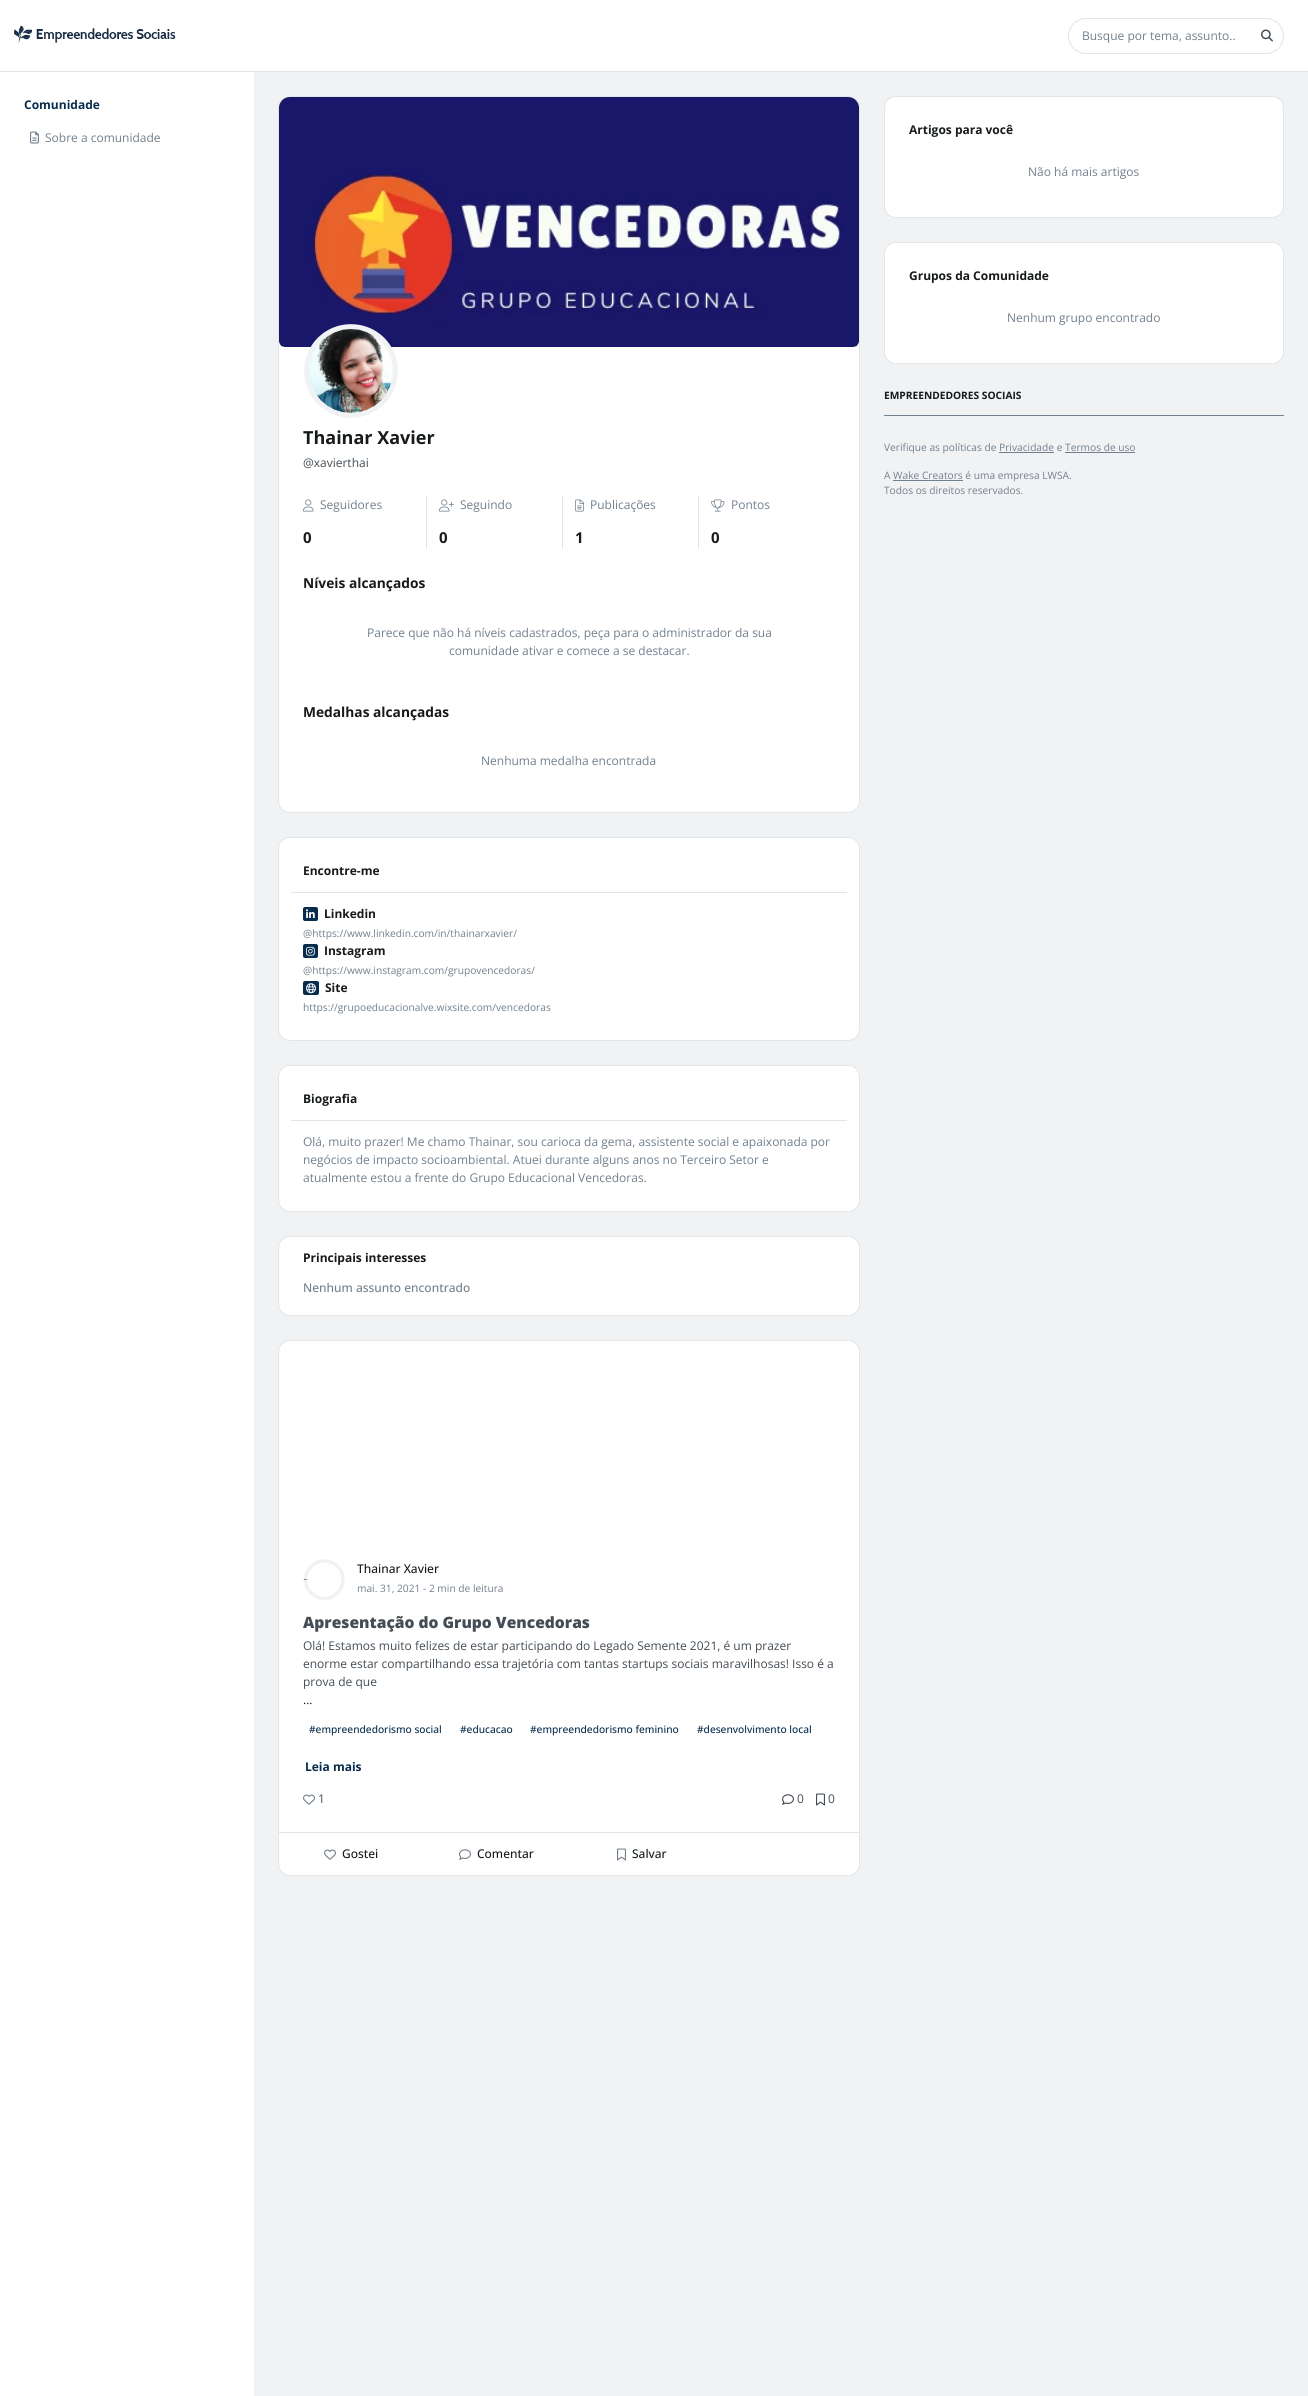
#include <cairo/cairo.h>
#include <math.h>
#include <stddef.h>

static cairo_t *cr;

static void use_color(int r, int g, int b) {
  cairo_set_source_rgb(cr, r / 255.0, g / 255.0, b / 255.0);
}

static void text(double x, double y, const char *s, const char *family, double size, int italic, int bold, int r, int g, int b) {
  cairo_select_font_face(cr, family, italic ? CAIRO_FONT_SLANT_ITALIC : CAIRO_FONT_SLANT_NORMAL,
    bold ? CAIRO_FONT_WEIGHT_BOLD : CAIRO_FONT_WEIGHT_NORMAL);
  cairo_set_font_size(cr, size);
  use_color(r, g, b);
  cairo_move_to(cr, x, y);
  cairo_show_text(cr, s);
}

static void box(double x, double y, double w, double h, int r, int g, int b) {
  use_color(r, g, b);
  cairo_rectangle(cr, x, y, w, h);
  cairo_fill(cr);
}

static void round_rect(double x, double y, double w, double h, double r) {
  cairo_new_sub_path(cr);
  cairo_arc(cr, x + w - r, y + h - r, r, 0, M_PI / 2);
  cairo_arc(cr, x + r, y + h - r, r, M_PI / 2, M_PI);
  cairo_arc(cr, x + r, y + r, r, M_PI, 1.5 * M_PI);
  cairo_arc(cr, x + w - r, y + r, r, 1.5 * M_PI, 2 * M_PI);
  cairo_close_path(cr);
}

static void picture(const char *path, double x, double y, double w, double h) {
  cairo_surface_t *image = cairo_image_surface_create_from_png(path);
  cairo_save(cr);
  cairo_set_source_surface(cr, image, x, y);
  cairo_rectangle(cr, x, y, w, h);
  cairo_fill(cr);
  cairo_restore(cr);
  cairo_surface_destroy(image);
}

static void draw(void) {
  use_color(241, 242, 244);
  cairo_paint(cr);
  box(0, 0, 1308, 71, 255, 255, 255);
  box(0, 71, 1308, 1, 227, 230, 232);
  picture("img_01.png", 14, 25, 162, 18);
  round_rect(1068.5, 18.5, 215, 35, 17.5);
  cairo_set_line_width(cr, 1);
  cairo_stroke(cr);
  picture("img_02.png", 1261, 29, 12, 13);
  box(0, 72, 254, 2324, 255, 255, 255);
  picture("img_03.png", 30, 131, 9, 13);
  round_rect(884.5, 96.5, 399, 121, 11.5);
  cairo_fill_preserve(cr);
  use_color(227, 230, 232);
  cairo_stroke(cr);
  use_color(255, 255, 255);
  round_rect(884.5, 242.5, 399, 121, 11.5);
  cairo_fill_preserve(cr);
  use_color(227, 230, 232);
  cairo_stroke(cr);
  box(884, 415, 400, 1, 114, 128, 141);
  box(999, 452, 55, 1, 114, 128, 141);
  box(1065, 452, 70, 1, 114, 128, 141);
  box(893, 480, 70, 1, 114, 128, 141);
  use_color(255, 255, 255);
  round_rect(278.5, 96.5, 581, 716, 11.5);
  cairo_fill_preserve(cr);
  use_color(227, 230, 232);
  cairo_stroke(cr);
  picture("img_04.png", 279, 97, 580, 250);
  cairo_new_path(cr);
  cairo_move_to(cr, 308, 371);
  cairo_curve_to(cr, 308, 347, 327, 328, 351, 328);
  cairo_curve_to(cr, 375, 328, 394, 347, 394, 371);
  cairo_curve_to(cr, 394, 395, 375, 414, 351, 414);
  cairo_curve_to(cr, 327, 414, 308, 395, 308, 371);
  cairo_close_path(cr);
  use_color(241, 242, 244);
  cairo_set_line_width(cr, 7.7);
  cairo_stroke(cr);
  picture("img_05.png", 309, 329, 84, 84);
  box(426, 496, 1, 53, 227, 230, 232);
  picture("img_06.png", 303, 499, 11, 13);
  box(562, 496, 1, 53, 227, 230, 232);
  picture("img_07.png", 439, 499, 15, 13);
  box(698, 496, 1, 53, 227, 230, 232);
  picture("img_08.png", 575, 499, 9, 13);
  picture("img_09.png", 711, 499, 14, 13);
  use_color(255, 255, 255);
  round_rect(278.5, 837.5, 581, 203, 11.5);
  cairo_fill_preserve(cr);
  use_color(227, 230, 232);
  cairo_set_line_width(cr, 1);
  cairo_stroke(cr);
  box(291, 892, 556, 1, 227, 230, 232);
  use_color(8, 44, 78);
  round_rect(303, 907, 15, 14, 2);
  cairo_fill(cr);
  picture("img_10.png", 306, 909, 9, 9);
  round_rect(303, 944, 15, 14, 2);
  cairo_fill(cr);
  picture("img_11.png", 306, 946, 9, 10);
  round_rect(303, 981, 16, 14, 2);
  cairo_fill(cr);
  picture("img_12.png", 306, 983, 10, 11);
  use_color(255, 255, 255);
  round_rect(278.5, 1065.5, 581, 146, 11.5);
  cairo_fill_preserve(cr);
  use_color(227, 230, 232);
  cairo_stroke(cr);
  box(291, 1120, 556, 1, 227, 230, 232);
  use_color(255, 255, 255);
  round_rect(278.5, 1236.5, 581, 79, 11.5);
  cairo_fill_preserve(cr);
  use_color(227, 230, 232);
  cairo_stroke(cr);
  use_color(255, 255, 255);
  round_rect(278.5, 1340.5, 581, 535, 11.5);
  cairo_fill_preserve(cr);
  use_color(227, 230, 232);
  cairo_stroke(cr);
  cairo_new_path(cr);
  cairo_move_to(cr, 305.5, 1579.5);
  cairo_curve_to(cr, 305.5, 1569.5, 314, 1561, 324.5, 1561);
  cairo_curve_to(cr, 334.5, 1561, 343, 1569.5, 343, 1579.5);
  cairo_curve_to(cr, 343, 1590, 334.5, 1598.5, 324.5, 1598.5);
  cairo_curve_to(cr, 314, 1598.5, 305.5, 1590, 305.5, 1579.5);
  cairo_close_path(cr);
  use_color(241, 242, 244);
  cairo_set_line_width(cr, 3.4);
  cairo_stroke(cr);
  cairo_new_path(cr);
  cairo_move_to(cr, 305.5, 1580);
  cairo_line_to(cr, 305.5, 1579.5);
  use_color(8, 44, 78);
  cairo_stroke(cr);
  picture("img_13.png", 303, 1794, 12, 11);
  picture("img_14.png", 782, 1794, 12, 11);
  picture("img_15.png", 816, 1793, 9, 13);
  box(279, 1832, 580, 1, 227, 230, 232);
  picture("img_13.png", 324, 1849, 12, 11);
  picture("img_16.png", 459, 1849, 12, 11);
  picture("img_17.png", 617, 1848, 9, 13);
  text(1082, 40, "Busque por tema, assunto..", "Open Sans", 12, 0, 0, 114, 128, 141);
  text(24, 109, "Comunidade", "Open Sans", 12, 0, 1, 8, 44, 78);
  text(45, 142, "Sobre a comunidade", "Open Sans", 12, 0, 0, 114, 128, 141);
  text(909, 134, "Artigos para você", "Open Sans", 12, 0, 1, 23, 26, 28);
  text(1028, 176, "Não há mais artigos", "Open Sans", 12, 0, 0, 114, 128, 141);
  text(909, 280, "Grupos da Comunidade", "Open Sans", 12, 0, 1, 23, 26, 28);
  text(1007, 322, "Nenhum grupo encontrado", "Open Sans", 12, 0, 0, 114, 128, 141);
  text(884, 399, "EMPREENDEDORES SOCIAIS", "Open Sans", 10.2, 0, 1, 23, 26, 28);
  text(884, 451, "Verifique as políticas de Privacidade e Termos de uso", "Open Sans", 10.2, 0, 0, 114, 128, 141);
  text(884, 479, "A Wake Creators é uma empresa LWSA.", "Open Sans", 10.2, 0, 0, 114, 128, 141);
  text(884, 494, "Todos os direitos reservados.", "Open Sans", 10.2, 0, 0, 114, 128, 141);
  text(303, 444, "Thainar Xavier", "Open Sans", 18, 0, 1, 23, 26, 28);
  text(303, 467, "@xavierthai", "Open Sans", 12, 0, 0, 68, 77, 85);
  text(320, 509, "Seguidores", "Open Sans", 12, 0, 0, 114, 128, 141);
  text(303, 543, "0", "Open Sans", 15, 0, 1, 23, 26, 28);
  text(460, 509, "Seguindo", "Open Sans", 12, 0, 0, 114, 128, 141);
  text(439, 543, "0", "Open Sans", 15, 0, 1, 23, 26, 28);
  text(590, 509, "Publicações", "Open Sans", 12, 0, 0, 114, 128, 141);
  text(575, 543, "1", "Open Sans", 15, 0, 1, 23, 26, 28);
  text(731, 509, "Pontos", "Open Sans", 12, 0, 0, 114, 128, 141);
  text(711, 543, "0", "Open Sans", 15, 0, 1, 23, 26, 28);
  text(303, 588, "Níveis alcançados", "Open Sans", 13.75, 0, 1, 23, 26, 28);
  text(367, 637, "Parece que não há níveis cadastrados, peça para o administrador da sua", "Open Sans", 12, 0, 0, 114, 128, 141);
  text(449, 655, "comunidade ativar e comece a se destacar.", "Open Sans", 12, 0, 0, 114, 128, 141);
  text(303, 717, "Medalhas alcançadas", "Open Sans", 13.75, 0, 1, 23, 26, 28);
  text(481, 765, "Nenhuma medalha encontrada", "Open Sans", 12, 0, 0, 114, 128, 141);
  text(303, 875, "Encontre-me", "Open Sans", 12, 0, 1, 23, 26, 28);
  text(324, 918, "Linkedin", "Open Sans", 12, 0, 1, 23, 26, 28);
  text(303, 937, "@https://www.linkedin.com/in/thainarxavier/", "Open Sans", 10.2, 0, 0, 114, 128, 141);
  text(324, 955, "Instagram", "Open Sans", 12, 0, 1, 23, 26, 28);
  text(303, 974, "@https://www.instagram.com/grupovencedoras/", "Open Sans", 10.2, 0, 0, 114, 128, 141);
  text(325, 992, "Site", "Open Sans", 12, 0, 1, 23, 26, 28);
  text(303, 1011, "https://grupoeducacionalve.wixsite.com/vencedoras", "Open Sans", 10.2, 0, 0, 114, 128, 141);
  text(303, 1103, "Biografia", "Open Sans", 12, 0, 1, 23, 26, 28);
  text(303, 1146, "Olá, muito prazer! Me chamo Thainar, sou carioca da gema, assistente social e apaixonada por", "Open Sans", 12, 0, 0, 114, 128, 141);
  text(303, 1164, "negócios de impacto socioambiental. Atuei durante alguns anos no Terceiro Setor e", "Open Sans", 12, 0, 0, 114, 128, 141);
  text(303, 1182, "atualmente estou a frente do Grupo Educacional Vencedoras.", "Open Sans", 12, 0, 0, 114, 128, 141);
  text(303, 1262, "Principais interesses", "Open Sans", 12, 0, 1, 23, 26, 28);
  text(303, 1292, "Nenhum assunto encontrado", "Open Sans Medium", 12, 0, 0, 114, 128, 141);
  text(357, 1573, "Thainar Xavier", "Open Sans Medium", 12, 0, 0, 23, 26, 28);
  text(357, 1592, "mai. 31, 2021 - 2 min de leitura", "Open Sans", 10.2, 0, 0, 114, 128, 141);
  text(303, 1628, "Apresentação do Grupo Vencedoras", "Open Sans ExtraBold", 15.6, 0, 0, 68, 77, 85);
  text(303, 1650, "Olá! Estamos muito felizes de estar participando do Legado Semente 2021, é um prazer", "Open Sans", 12, 0, 0, 68, 77, 85);
  text(303, 1668, "enorme estar compartilhando essa trajetória com tantas startups sociais maravilhosas! Isso é a", "Open Sans", 12, 0, 0, 68, 77, 85);
  text(303, 1686, "prova de que", "Open Sans", 12, 0, 0, 68, 77, 85);
  text(303, 1704, "...", "Open Sans", 12, 0, 0, 23, 26, 28);
  text(309, 1733, "#empreendedorismo social", "Open Sans Medium", 10.2, 0, 0, 8, 44, 78);
  text(460, 1733, "#educacao", "Open Sans Medium", 10.2, 0, 0, 8, 44, 78);
  text(530, 1733, "#empreendedorismo feminino", "Open Sans Medium", 10.2, 0, 0, 8, 44, 78);
  text(697, 1733, "#desenvolvimento local", "Open Sans Medium", 10.2, 0, 0, 8, 44, 78);
  text(305, 1771, "Leia mais", "Open Sans", 12, 0, 1, 8, 44, 78);
  text(318, 1803, "1", "Open Sans", 12, 0, 0, 68, 77, 85);
  text(797, 1803, "0", "Open Sans", 12, 0, 0, 68, 77, 85);
  text(828, 1803, "0", "Open Sans", 12, 0, 0, 68, 77, 85);
  text(342, 1858, "Gostei", "Open Sans Medium", 12, 0, 0, 23, 26, 28);
  text(477, 1858, "Comentar", "Open Sans Medium", 12, 0, 0, 23, 26, 28);
  text(632, 1858, "Salvar", "Open Sans Medium", 12, 0, 0, 23, 26, 28);
}

int main(void) {
  cairo_surface_t *surface = cairo_image_surface_create(CAIRO_FORMAT_RGB24, 1308, 2396);
  cr = cairo_create(surface);
  cairo_font_options_t *options = cairo_font_options_create();
  cairo_font_options_set_hint_metrics(options, CAIRO_HINT_METRICS_OFF);
  cairo_font_options_set_hint_style(options, CAIRO_HINT_STYLE_NONE);
  cairo_set_font_options(cr, options);
  cairo_set_miter_limit(cr, 4);
  draw();
  cairo_surface_write_to_png(surface, "out.png");
  cairo_font_options_destroy(options);
  cairo_destroy(cr);
  cairo_surface_destroy(surface);
  return 0;
}
